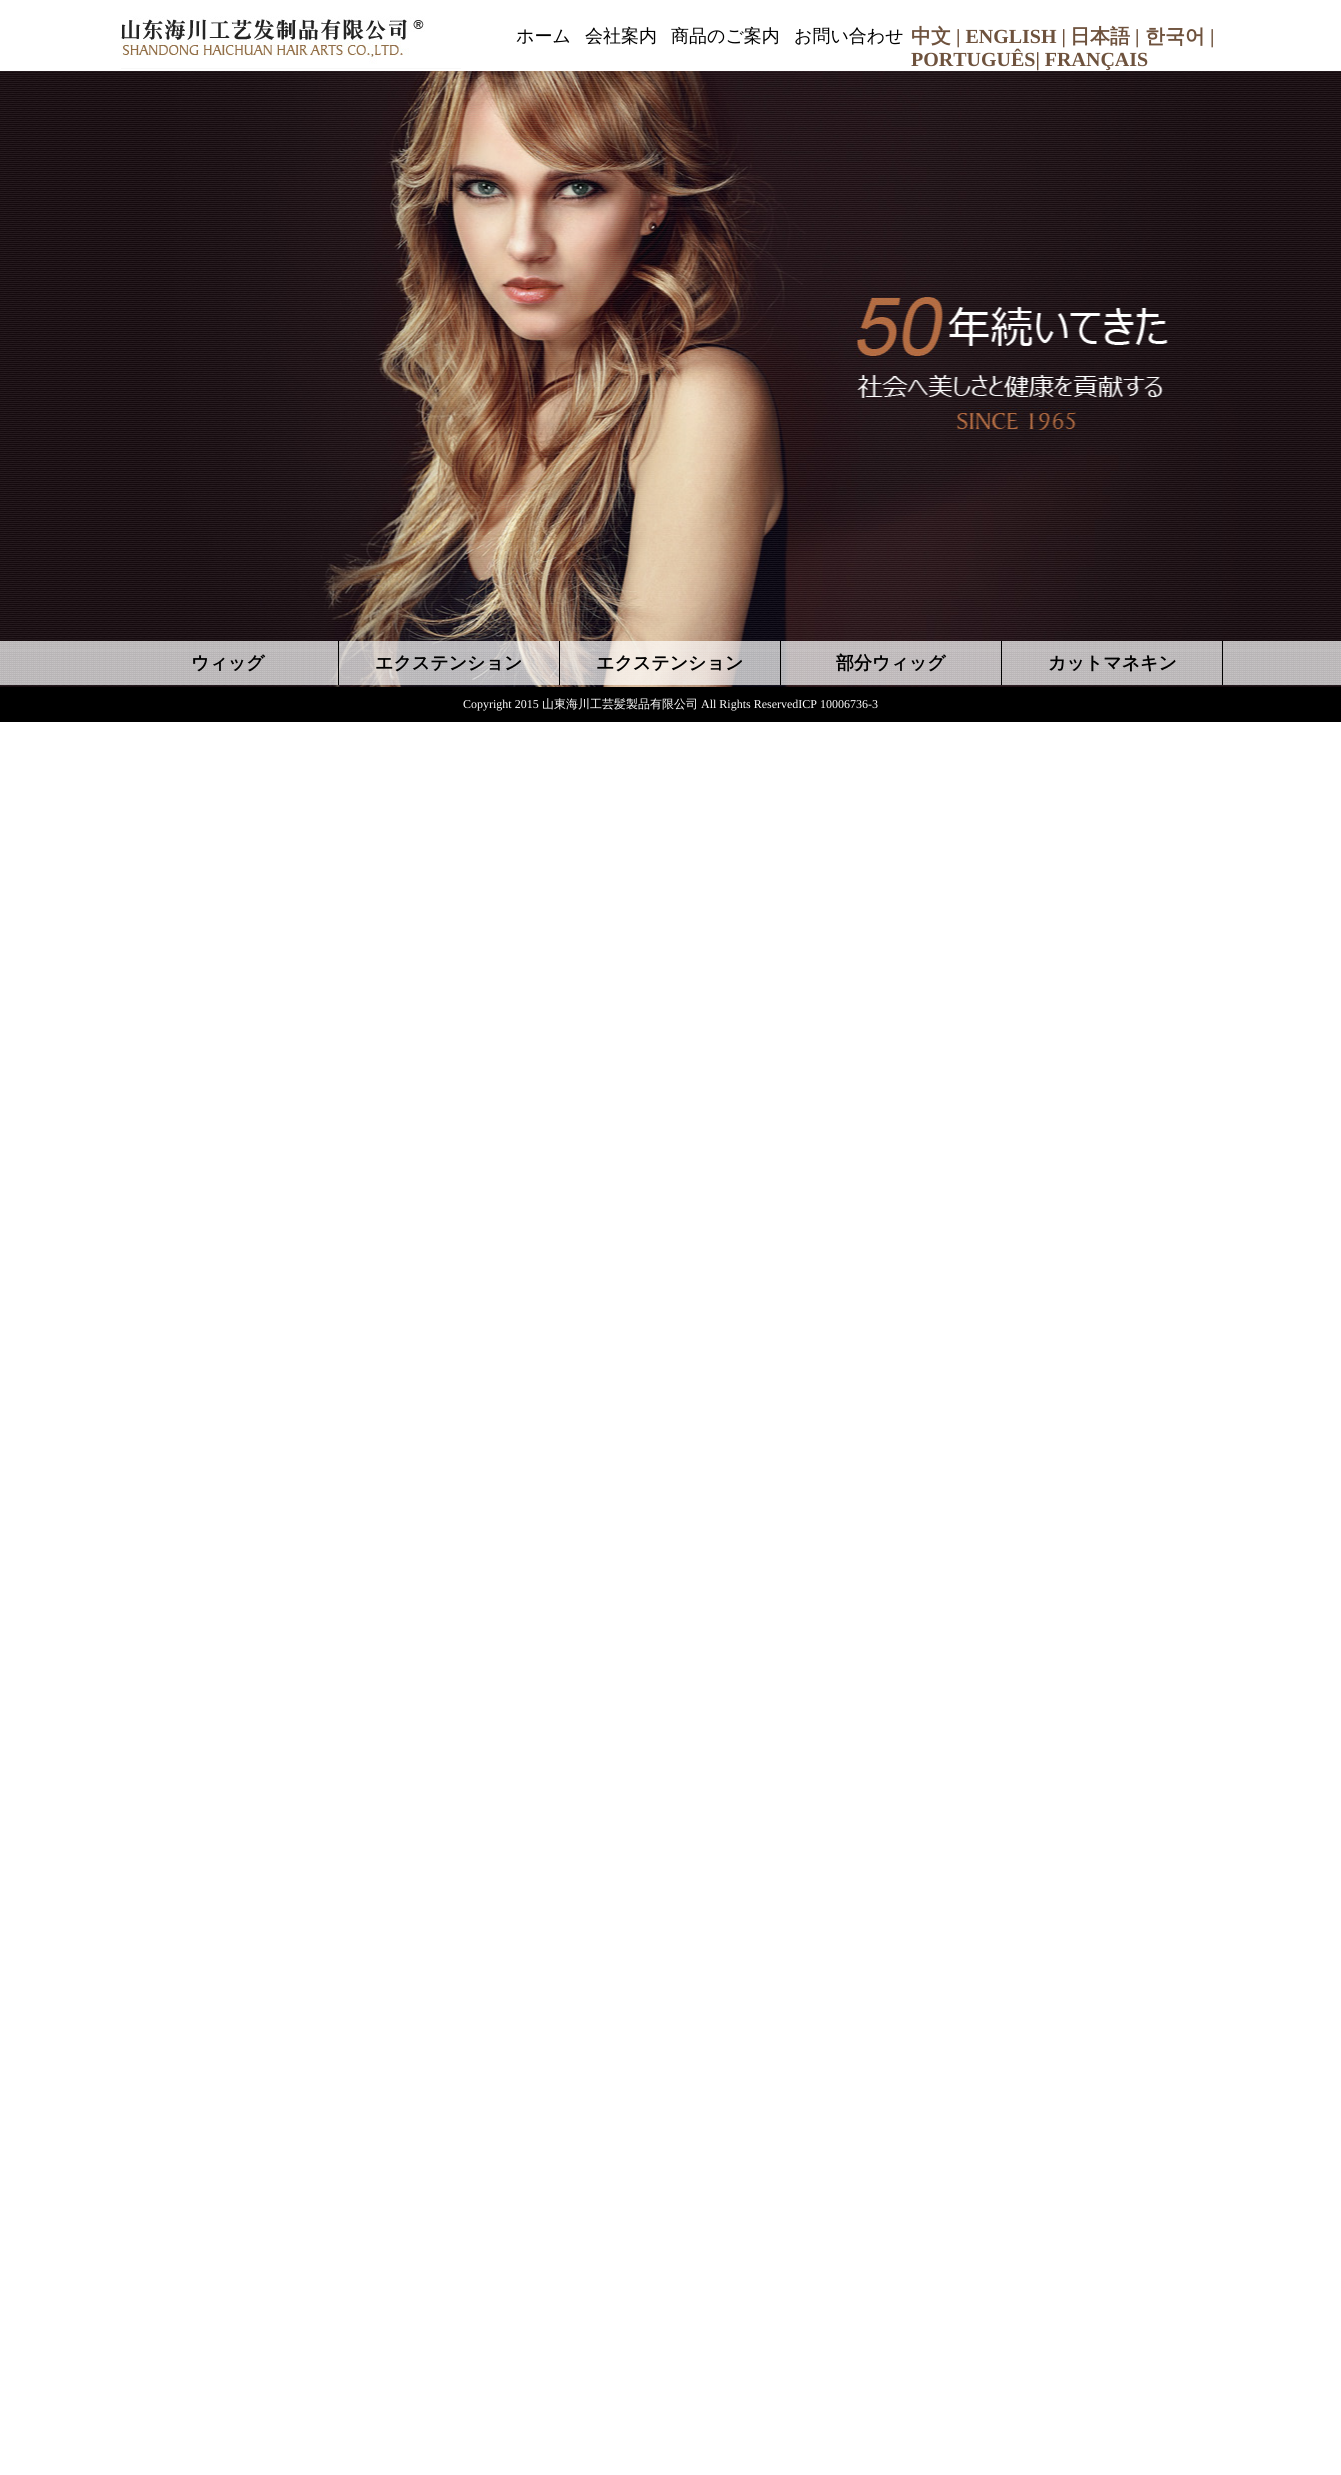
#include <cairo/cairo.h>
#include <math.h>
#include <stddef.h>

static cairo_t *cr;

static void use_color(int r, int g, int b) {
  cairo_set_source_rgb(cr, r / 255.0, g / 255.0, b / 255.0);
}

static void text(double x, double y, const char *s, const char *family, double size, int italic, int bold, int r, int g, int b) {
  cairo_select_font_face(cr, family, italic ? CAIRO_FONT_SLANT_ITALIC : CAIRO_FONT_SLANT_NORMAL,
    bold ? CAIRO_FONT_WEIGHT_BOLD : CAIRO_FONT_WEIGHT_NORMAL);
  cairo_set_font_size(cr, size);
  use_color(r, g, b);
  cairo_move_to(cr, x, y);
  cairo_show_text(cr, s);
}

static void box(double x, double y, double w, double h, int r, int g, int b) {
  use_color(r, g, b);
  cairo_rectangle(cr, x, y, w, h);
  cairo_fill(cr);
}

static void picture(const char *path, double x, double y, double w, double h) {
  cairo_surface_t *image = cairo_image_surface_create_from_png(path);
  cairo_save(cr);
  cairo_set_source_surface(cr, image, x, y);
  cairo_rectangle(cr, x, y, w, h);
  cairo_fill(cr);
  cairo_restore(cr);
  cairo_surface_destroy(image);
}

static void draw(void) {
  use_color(255, 255, 255);
  cairo_paint(cr);
  picture("img_01.png", 121, 16, 340, 53);
  picture("img_02.png", 0, 71, 1341, 616);
  picture("img_03.png", 0, 641, 1341, 44);
  box(338, 641, 1, 44, 0, 0, 0);
  box(559, 641, 1, 44, 0, 0, 0);
  box(780, 641, 1, 44, 0, 0, 0);
  box(1001, 641, 1, 44, 0, 0, 0);
  box(1222, 641, 1, 44, 0, 0, 0);
  box(0, 687, 1341, 35, 0, 0, 0);
  text(516, 42, "ホーム", "WenQuanYi Zen Hei Medium", 18, 0, 0, 0, 0, 0);
  text(585, 42, "会社案内", "WenQuanYi Zen Hei Medium", 18, 0, 0, 0, 0, 0);
  text(671, 42, "商品のご案内", "WenQuanYi Zen Hei Medium", 18, 0, 0, 0, 0, 0);
  text(794, 42, "お問い合わせ", "WenQuanYi Zen Hei Medium", 18, 0, 0, 0, 0, 0);
  text(911, 43, "中文", "WenQuanYi Zen Hei", 20, 0, 1, 110, 82, 61);
  text(956, 43, "| ENGLISH |", "Liberation Serif", 20, 0, 1, 110, 82, 61);
  text(1070, 43, "日本語", "WenQuanYi Zen Hei", 20, 0, 1, 110, 82, 61);
  text(1135, 43, "|", "Liberation Serif", 20, 0, 1, 110, 82, 61);
  text(1145, 43, "한국어", "WenQuanYi Zen Hei", 20, 0, 1, 110, 82, 61);
  text(1210, 43, "|", "Liberation Serif", 20, 0, 1, 110, 82, 61);
  text(911, 66, "PORTUGUÊS| FRANÇAIS", "Liberation Serif", 20, 0, 1, 110, 82, 61);
  text(191, 669, "ウィッグ", "WenQuanYi Zen Hei", 18, 0, 1, 0, 0, 0);
  text(375, 669, "エクステンション", "WenQuanYi Zen Hei", 18, 0, 1, 0, 0, 0);
  text(596, 669, "エクステンション", "WenQuanYi Zen Hei", 18, 0, 1, 0, 0, 0);
  text(836, 669, "部分ウィッグ", "WenQuanYi Zen Hei", 18, 0, 1, 0, 0, 0);
  text(1048, 669, "カットマネキン", "WenQuanYi Zen Hei", 18, 0, 1, 0, 0, 0);
  text(463, 708, "Copyright 2015", "Liberation Serif", 12, 0, 0, 255, 255, 255);
  text(542, 708, "山東海川工芸髪製品有限公司", "WenQuanYi Zen Hei Medium", 12, 0, 0, 255, 255, 255);
  text(701, 708, "All Rights ReservedICP 10006736-3", "Liberation Serif", 12, 0, 0, 255, 255, 255);
}

int main(void) {
  cairo_surface_t *surface = cairo_image_surface_create(CAIRO_FORMAT_RGB24, 1341, 2475);
  cr = cairo_create(surface);
  cairo_font_options_t *options = cairo_font_options_create();
  cairo_font_options_set_hint_metrics(options, CAIRO_HINT_METRICS_OFF);
  cairo_font_options_set_hint_style(options, CAIRO_HINT_STYLE_NONE);
  cairo_set_font_options(cr, options);
  cairo_set_miter_limit(cr, 4);
  draw();
  cairo_surface_write_to_png(surface, "out.png");
  cairo_font_options_destroy(options);
  cairo_destroy(cr);
  cairo_surface_destroy(surface);
  return 0;
}
